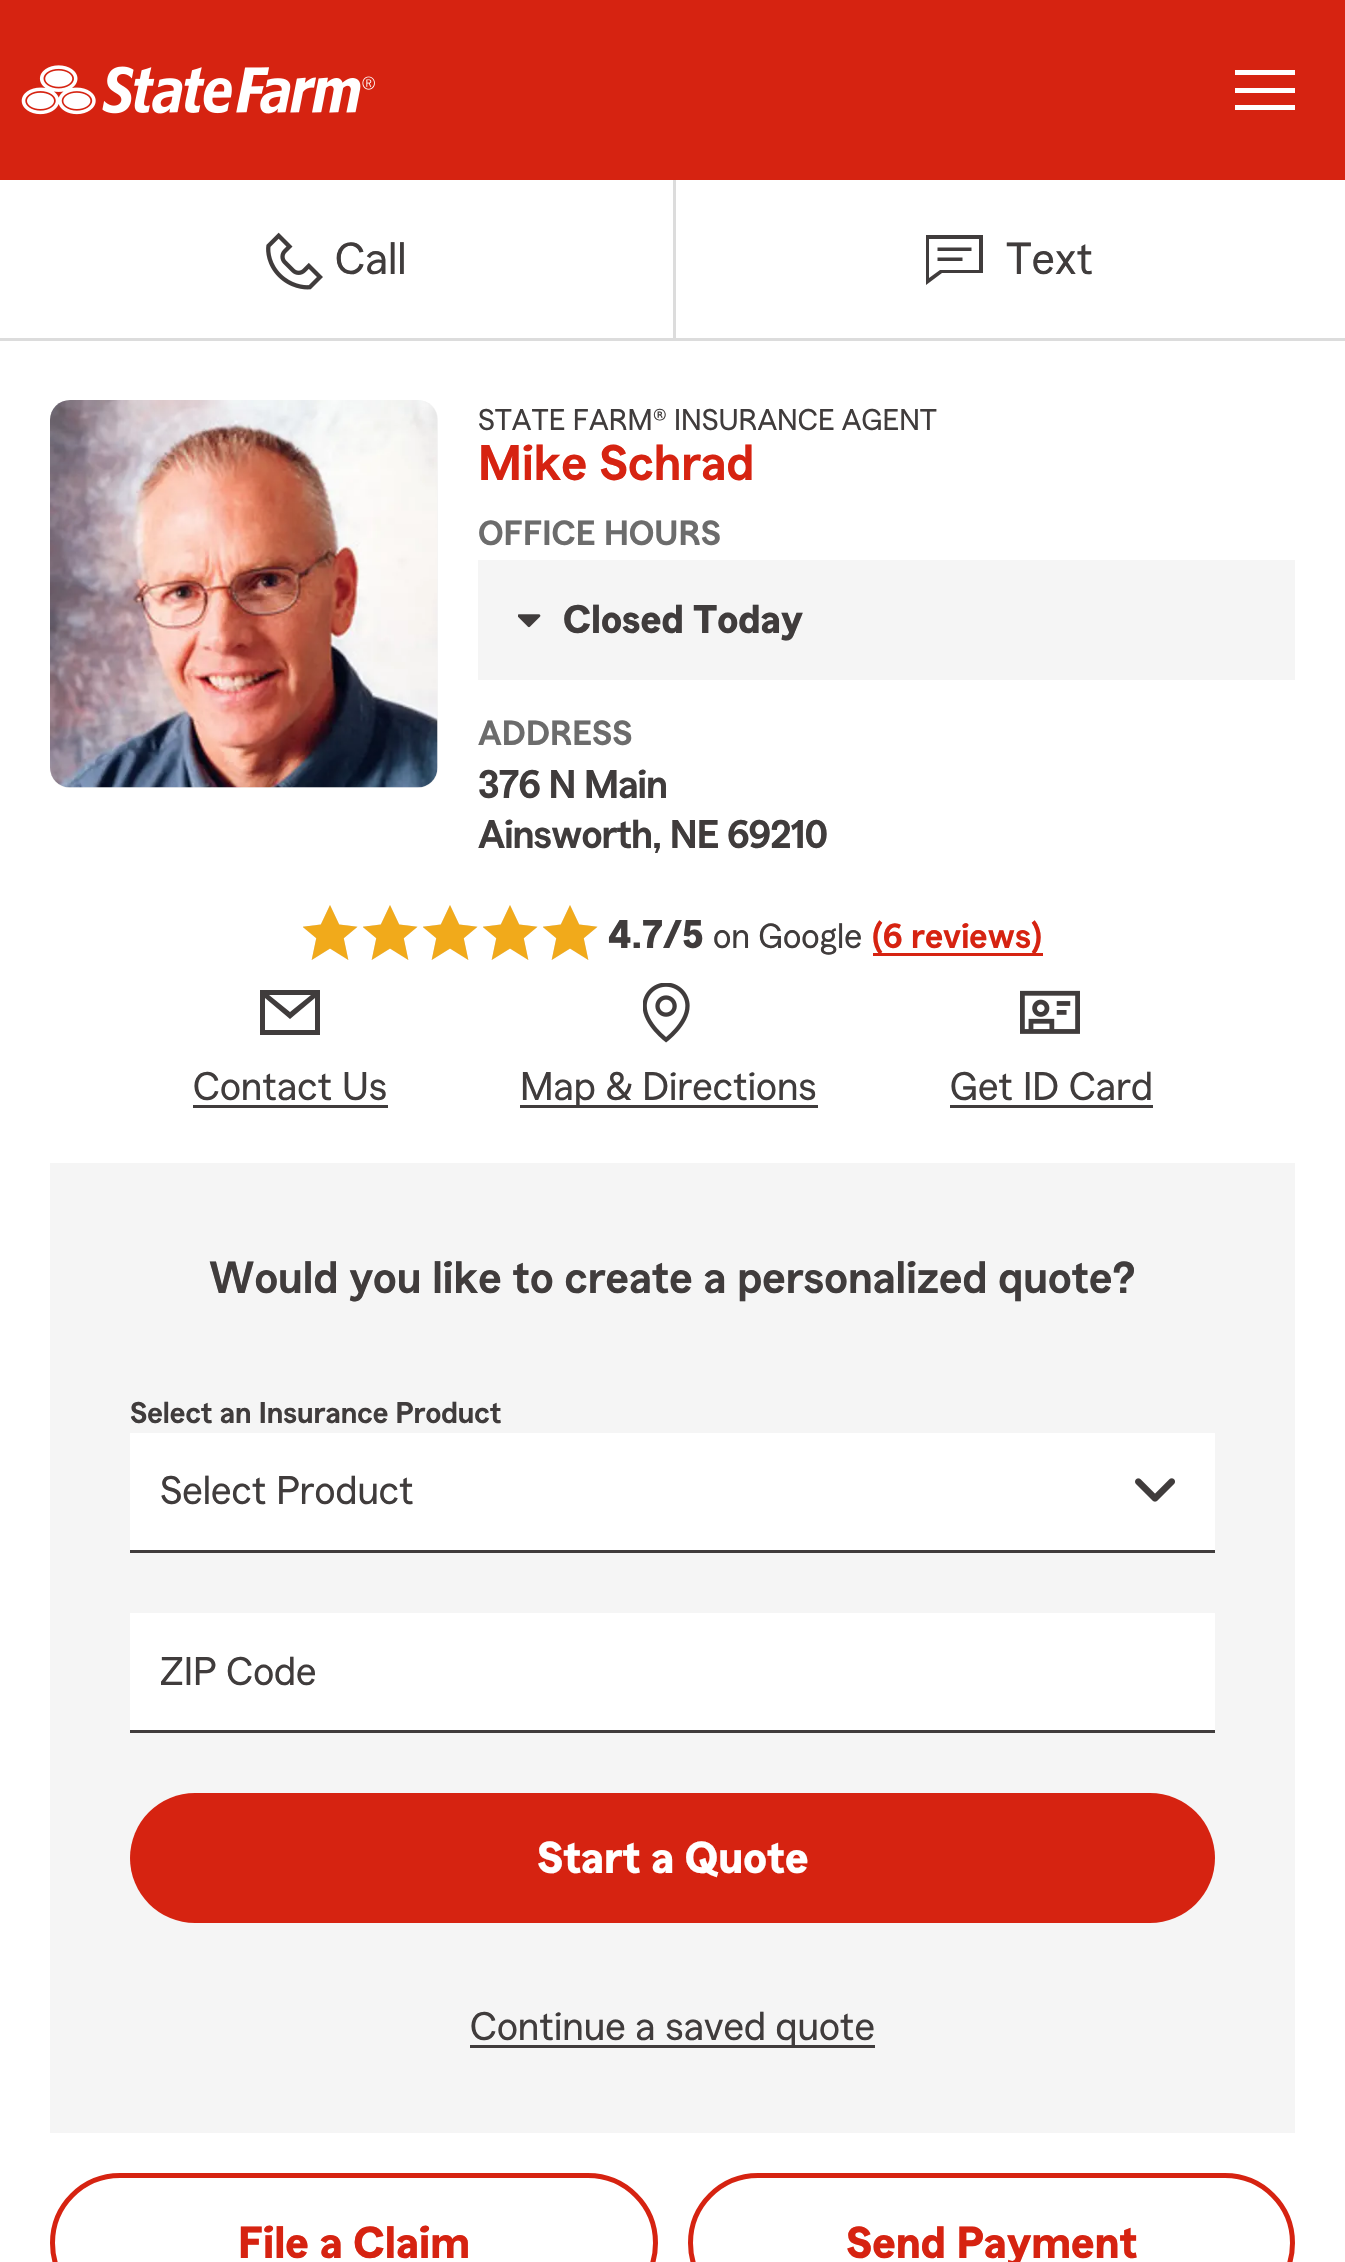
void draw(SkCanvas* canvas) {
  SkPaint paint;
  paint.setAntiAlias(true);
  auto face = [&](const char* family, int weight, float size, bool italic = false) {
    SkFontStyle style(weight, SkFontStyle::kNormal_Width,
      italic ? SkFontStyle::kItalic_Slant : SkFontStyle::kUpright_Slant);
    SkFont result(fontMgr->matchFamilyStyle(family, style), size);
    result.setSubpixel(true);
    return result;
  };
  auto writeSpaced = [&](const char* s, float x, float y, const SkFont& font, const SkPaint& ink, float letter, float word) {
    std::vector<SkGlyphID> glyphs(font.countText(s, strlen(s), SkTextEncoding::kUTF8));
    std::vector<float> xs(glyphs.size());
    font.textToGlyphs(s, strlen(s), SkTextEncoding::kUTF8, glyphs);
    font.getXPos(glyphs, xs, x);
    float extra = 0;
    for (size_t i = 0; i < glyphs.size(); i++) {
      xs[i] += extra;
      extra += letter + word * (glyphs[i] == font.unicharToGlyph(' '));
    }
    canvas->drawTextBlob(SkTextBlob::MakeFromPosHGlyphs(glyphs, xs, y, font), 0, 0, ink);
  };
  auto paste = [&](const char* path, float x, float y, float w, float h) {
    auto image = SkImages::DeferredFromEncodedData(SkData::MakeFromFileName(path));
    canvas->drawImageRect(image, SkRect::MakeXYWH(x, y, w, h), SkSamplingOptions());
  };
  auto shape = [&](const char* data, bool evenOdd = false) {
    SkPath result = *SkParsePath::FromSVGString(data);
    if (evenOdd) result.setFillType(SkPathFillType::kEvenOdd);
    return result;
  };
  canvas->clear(0xffffffff);
  paint.setColor(0xffd62311);
  canvas->drawRect(SkRect::MakeXYWH(0, 0, 1345, 180), paint);
  paste("img/1.png", 21, 65, 354, 50);
  {
    const struct { float x, y, w, h; SkColor color; } items[] = {
      {1235, 70, 60, 5, 0xffffffff},
      {1235, 88, 60, 5, 0xffffffff},
      {1235, 105, 60, 5, 0xffffffff},
      {0, 338, 1345, 3, 0xffdcdcdc},
    };
    for (auto [x, y, w, h, color] : items) {
      paint.setColor(color);
      canvas->drawRect(SkRect::MakeXYWH(x, y, w, h), paint);
    }
  }
  paste("img/2.png", 266, 232, 57, 58);
  canvas->drawRect(SkRect::MakeXYWH(673, 180, 3, 158), paint);
  paint.setColor(0xff403c3c);
  canvas->drawPath(shape("M926 235H983V273H942L926 285ZM929 239V278L940 270H979V239Z"), paint);
  canvas->drawPath(shape("M971.5 251H937.5V247.5H971.5ZM962.5 261H937.5V257.5H962.5Z"), paint);
  paint.setColor(0xfff5f5f5);
  canvas->drawRoundRect(SkRect::MakeXYWH(50, 400, 388, 388), 20, 20, paint);
  paste("img/3.png", 50, 400, 388, 388);
  canvas->drawRect(SkRect::MakeXYWH(478, 560, 817, 120), paint);
  paste("img/4.png", 518, 614, 23, 14);
  paste("img/5.png", 303, 905, 55, 55);
  paste("img/5.png", 363, 905, 55, 55);
  paste("img/5.png", 423, 905, 55, 55);
  paste("img/5.png", 483, 905, 55, 55);
  paste("img/5.png", 543, 905, 55, 55);
  paint.setColor(0xffd62311);
  canvas->drawRect(SkRect::MakeXYWH(873, 953, 170, 3), paint);
  paint.setColor(0xff403c3c);
  canvas->drawPath(shape("M260 990H320V1035H260ZM265 998V1030H315V998L290 1019ZM311 995H269L290 1012Z", true), paint);
  canvas->drawRect(SkRect::MakeXYWH(193, 1105, 195, 3), paint);
  paste("img/6.png", 643, 983, 47, 60);
  canvas->drawRect(SkRect::MakeXYWH(520, 1105, 298, 3), paint);
  paste("img/7.png", 1020, 990, 60, 44);
  {
    const struct { float x, y, w, h; SkColor color; } items[] = {
      {950, 1105, 203, 3, 0xff403c3c},
      {50, 1163, 1245, 970, 0xfff5f5f5},
      {130, 1550, 1085, 3, 0xff403c3c},
      {130, 1433, 1085, 117, 0xffffffff},
    };
    for (auto [x, y, w, h, color] : items) {
      paint.setColor(color);
      canvas->drawRect(SkRect::MakeXYWH(x, y, w, h), paint);
    }
  }
  paste("img/8.png", 1135, 1478, 40, 24);
  canvas->drawRect(SkRect::MakeXYWH(130, 1613, 1085, 117), paint);
  paint.setColor(0xff403c3c);
  canvas->drawRect(SkRect::MakeXYWH(130, 1730, 1085, 3), paint);
  paint.setColor(0xffd62311);
  canvas->drawRoundRect(SkRect::MakeXYWH(130, 1793, 1085, 130), 65, 65, paint);
  paint.setColor(0xff403c3c);
  canvas->drawRect(SkRect::MakeXYWH(470, 2045, 405, 3), paint);
  paint.setStroke(true);
  paint.setStrokeWidth(5);
  paint.setColor(0xffd62311);
  canvas->drawRoundRect(SkRect::MakeXYWH(52.5f, 2175.5f, 603, 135), 67.5f, 67.5f, paint);
  canvas->drawRoundRect(SkRect::MakeXYWH(690.5f, 2175.5f, 602, 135), 67.5f, 67.5f, paint);
  auto f0 = face("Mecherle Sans", 400, 45);
  paint.setStroke(false);
  paint.setColor(0xff403c3c);
  canvas->drawString("Call", 335, 274, f0, paint);
  canvas->drawString("Text", 1006, 274, f0, paint);
  auto f1 = face("Mecherle Sans", 400, 30);
  canvas->drawString("STATE FARM® INSURANCE AGENT", 478, 430, f1, paint);
  auto f2 = face("Mecherle Sans", 600, 50);
  paint.setColor(0xffd62311);
  canvas->drawString("Mike Schrad", 478, 480, f2, paint);
  auto f3 = face("Mecherle Sans", 600, 35);
  paint.setColor(0xff6c6c6c);
  canvas->drawString("OFFICE HOURS", 478, 545, f3, paint);
  auto f4 = face("Mecherle Sans", 700, 40);
  paint.setColor(0xff403c3c);
  canvas->drawString("Closed Today", 563, 633, f4, paint);
  paint.setColor(0xff6c6c6c);
  canvas->drawString("ADDRESS", 478, 745, f3, paint);
  auto f5 = face("Mecherle Sans", 600, 40);
  paint.setColor(0xff403c3c);
  writeSpaced("376 N Main", 478, 798, f5, paint, -1, 0);
  writeSpaced("Ainsworth, NE 69210", 478, 848, f5, paint, -1, 0);
  canvas->drawString("4.7/5", 608, 948, f4, paint);
  auto f6 = face("Mecherle Sans", 400, 35);
  canvas->drawString("on Google", 713, 948, f6, paint);
  paint.setColor(0xffd62311);
  canvas->drawString("(6 reviews)", 872, 948, f3, paint);
  auto f7 = face("Mecherle Sans", 400, 40);
  paint.setColor(0xff403c3c);
  {
    const struct { const char* s; float x, y; } items[] = {
      {"Contact Us", 193, 1100},
      {"Map & Directions", 520, 1100},
      {"Get ID Card", 950, 1100},
    };
    for (auto [s, x, y] : items) {
      canvas->drawString(s, x, y, f7, paint);
    }
  }
  auto f8 = face("Mecherle Sans", 600, 45);
  canvas->drawString("Would you like to create a personalized quote?", 209, 1293, f8, paint);
  auto f9 = face("Mecherle Sans", 600, 30);
  canvas->drawString("Select an Insurance Product", 130, 1423, f9, paint);
  canvas->drawString("Select Product", 160, 1504, f7, paint);
  canvas->drawString("ZIP Code", 160, 1685, f7, paint);
  auto f10 = face("Mecherle Sans", 700, 45);
  paint.setColor(0xffffffff);
  canvas->drawString("Start a Quote", 537, 1873, f10, paint);
  paint.setColor(0xff403c3c);
  canvas->drawString("Continue a saved quote", 470, 2040, f7, paint);
  paint.setColor(0xffd62311);
  canvas->drawString("File a Claim", 238, 2258, f10, paint);
  canvas->drawString("Send Payment", 846, 2258, f10, paint);
}
